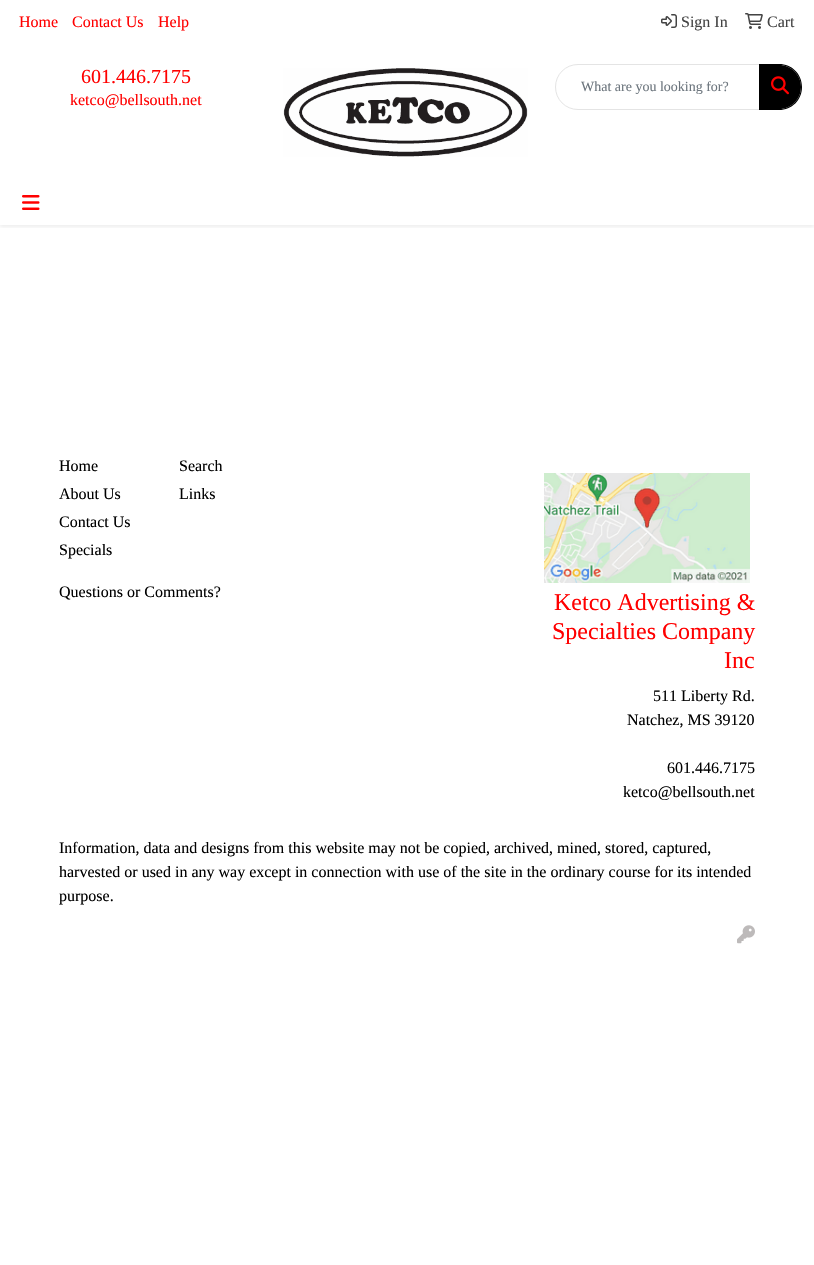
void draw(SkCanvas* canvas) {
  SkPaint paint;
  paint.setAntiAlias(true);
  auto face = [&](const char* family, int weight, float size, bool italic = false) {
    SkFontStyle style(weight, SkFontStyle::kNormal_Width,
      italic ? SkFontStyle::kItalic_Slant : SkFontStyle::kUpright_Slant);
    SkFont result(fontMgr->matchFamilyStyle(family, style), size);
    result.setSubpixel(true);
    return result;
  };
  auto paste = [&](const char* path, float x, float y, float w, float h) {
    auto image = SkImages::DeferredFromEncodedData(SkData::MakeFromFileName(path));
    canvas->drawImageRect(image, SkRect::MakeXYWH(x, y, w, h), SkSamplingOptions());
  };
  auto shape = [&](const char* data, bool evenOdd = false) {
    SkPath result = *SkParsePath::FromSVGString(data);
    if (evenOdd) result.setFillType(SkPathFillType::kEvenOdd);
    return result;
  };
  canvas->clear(0xffffffff);
  paste("img/1.png", 661, 14, 16, 14);
  paste("img/2.png", 745, 13, 18, 16);
  paste("img/3.png", 283, 68, 245, 89);
  paint.setStroke(true);
  paint.setStrokeWidth(1);
  paint.setColor(0xffe4e4e4);
  canvas->drawPath(shape("M578 64.5H759.5V109.5H578C565.5 109.5 555.5 99.5 555.5 87C555.5 74.5 565.5 64.5 578 64.5Z"), paint);
  paint.setStroke(false);
  paint.setColor(0xff000000);
  canvas->drawPath(shape("M759 65H779C791 65 801 75 801 87C801 99 791 109 779 109H759Z"), paint);
  canvas->drawPath(shape("M759 64H779C792 64 802 74 802 87C802 100 792 110 779 110H759ZM759 65H779C791 65 801 75 801 87C801 99 791 109 779 109H759Z", true), paint);
  paste("img/4.png", 771, 76, 18, 19);
  canvas->save();
  canvas->clipRect(SkRect::MakeXYWH(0, 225, 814, 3));
  paint.setColor(0x12000000);
  paint.setMaskFilter(SkMaskFilter::MakeBlur(kNormal_SkBlurStyle, 2));
  canvas->drawRect(SkRect::MakeXYWH(0, 183, 814, 44), paint);
  paint.setMaskFilter(nullptr);
  canvas->restore();
  paste("img/5.png", 22, 195, 18, 15);
  paste("img/6.png", 544, 473, 206, 110);
  paste("img/7.png", 737, 925, 18, 19);
  auto f0 = face("Liberation Serif", 400, 16);
  paint.setColor(0xffff0000);
  {
    const struct { const char* s; float x, y; } items[] = {
      {"Home", 19, 27},
      {"Contact Us", 72, 27},
      {"Help", 158, 27},
    };
    for (auto [s, x, y] : items) {
      canvas->drawString(s, x, y, f0, paint);
    }
  }
  paint.setColor(0xff444444);
  canvas->drawString("Sign In", 681, 27, f0, paint);
  canvas->drawString("Cart", 767, 27, f0, paint);
  auto f1 = face("Liberation Serif", 400, 20);
  paint.setColor(0xffff0000);
  canvas->drawString("601.446.7175", 81, 83, f1, paint);
  canvas->drawString("ketco@bellsouth.net", 70, 105, f0, paint);
  auto f2 = face("Liberation Serif", 400, 14);
  paint.setColor(0xff6c757d);
  canvas->drawString("What are you looking for?", 581, 91, f2, paint);
  paint.setColor(0xff000000);
  {
    const struct { const char* s; float x, y; } items[] = {
      {"Home", 59, 471},
      {"About Us", 59, 499},
      {"Contact Us", 59, 527},
      {"Specials", 59, 555},
      {"Search", 179, 471},
      {"Links", 179, 499},
      {"Questions or Comments?", 59, 597},
    };
    for (auto [s, x, y] : items) {
      canvas->drawString(s, x, y, f0, paint);
    }
  }
  auto f3 = face("Liberation Serif", 400, 24);
  paint.setColor(0xffff0000);
  {
    const struct { const char* s; float x, y; } items[] = {
      {"Ketco Advertising &", 554, 610},
      {"Specialties Company", 552, 639},
      {"Inc", 724, 668},
    };
    for (auto [s, x, y] : items) {
      canvas->drawString(s, x, y, f3, paint);
    }
  }
  paint.setColor(0xff000000);
  {
    const struct { const char* s; float x, y; } items[] = {
      {"511 Liberty Rd.", 653, 701},
      {"Natchez, MS 39120", 627, 725},
      {"601.446.7175", 667, 773},
      {"ketco@bellsouth.net", 623, 797},
      {"Information, data and designs from this website may not be copied, archived, mined, stored, captured,", 59, 853},
      {"harvested or used in any way except in connection with use of the site in the ordinary course for its intended", 59, 877},
      {"purpose.", 59, 901},
    };
    for (auto [s, x, y] : items) {
      canvas->drawString(s, x, y, f0, paint);
    }
  }
}
